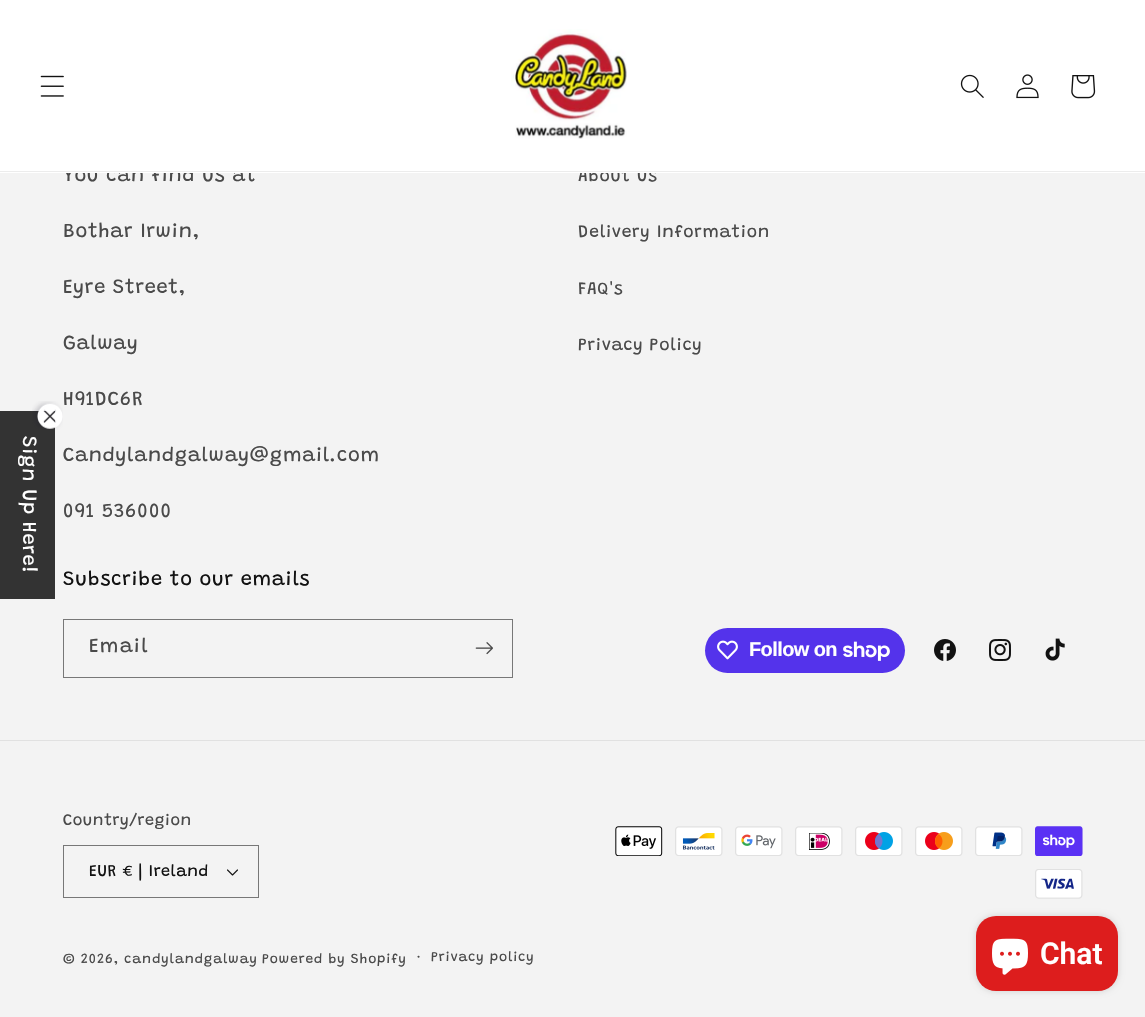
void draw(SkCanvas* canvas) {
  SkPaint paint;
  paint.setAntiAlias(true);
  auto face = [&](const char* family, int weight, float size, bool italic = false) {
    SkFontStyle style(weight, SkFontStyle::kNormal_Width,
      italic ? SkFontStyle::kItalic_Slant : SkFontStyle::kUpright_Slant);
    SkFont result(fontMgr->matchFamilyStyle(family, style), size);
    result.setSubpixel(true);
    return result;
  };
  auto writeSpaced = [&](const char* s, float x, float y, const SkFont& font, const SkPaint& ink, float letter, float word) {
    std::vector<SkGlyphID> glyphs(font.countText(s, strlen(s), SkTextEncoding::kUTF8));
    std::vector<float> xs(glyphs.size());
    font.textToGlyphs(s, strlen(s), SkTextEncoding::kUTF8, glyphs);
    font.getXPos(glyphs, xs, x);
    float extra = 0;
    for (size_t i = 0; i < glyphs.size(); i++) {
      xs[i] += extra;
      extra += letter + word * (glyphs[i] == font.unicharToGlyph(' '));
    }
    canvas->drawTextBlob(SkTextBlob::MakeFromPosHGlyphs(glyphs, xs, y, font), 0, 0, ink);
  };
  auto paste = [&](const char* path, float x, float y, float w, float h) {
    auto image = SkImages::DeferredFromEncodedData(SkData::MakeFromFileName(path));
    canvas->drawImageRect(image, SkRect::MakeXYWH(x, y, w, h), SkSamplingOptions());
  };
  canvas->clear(0xfff3f3f3);
  paint.setColor(0xff333333);
  canvas->drawRect(SkRect::MakeXYWH(0, 411, 55, 188), paint);
  paste("img/6.png", 32, 401, 31, 29);
  paint.setStroke(true);
  paint.setStrokeWidth(1);
  paint.setColor(0xff777777);
  canvas->drawRect(SkRect::MakeXYWH(63.5f, 619.5f, 449, 58), paint);
  paste("img/7.png", 475, 642, 18, 13);
  paint.setStroke(false);
  paint.setColor(0xff5433eb);
  canvas->drawRoundRect(SkRect::MakeXYWH(705, 628, 200, 45), 22.5f, 22.5f, paint);
  paste("img/8.png", 717, 640, 21, 20);
  paste("img/9.png", 843, 641, 47, 20);
  paste("img/10.png", 934, 639, 22, 22);
  paste("img/11.png", 989, 639, 22, 22);
  paste("img/12.png", 1045, 638, 20, 23);
  paint.setColor(0xffe1e1e1);
  canvas->drawRect(SkRect::MakeXYWH(0, 740, 1145, 1), paint);
  paste("img/13.png", 227, 869, 11, 7);
  paint.setStroke(true);
  paint.setColor(0xff777777);
  canvas->drawRect(SkRect::MakeXYWH(63.5f, 845.5f, 195, 52), paint);
  paste("img/14.png", 615, 826, 48, 30);
  paste("img/15.png", 675, 826, 48, 30);
  paste("img/16.png", 735, 826, 48, 30);
  paste("img/17.png", 795, 826, 48, 30);
  paste("img/18.png", 855, 826, 48, 30);
  paste("img/19.png", 915, 826, 48, 30);
  paste("img/20.png", 975, 826, 48, 30);
  paste("img/21.png", 1035, 826, 48, 30);
  paste("img/22.png", 1035, 869, 48, 30);
  paint.setStroke(false);
  paint.setColor(0x26000000);
  paint.setMaskFilter(SkMaskFilter::MakeBlur(kNormal_SkBlurStyle, 3));
  canvas->drawRoundRect(SkRect::MakeXYWH(976, 916, 142, 75), 20, 20, paint);
  paint.setMaskFilter(nullptr);
  paint.setColor(0xffdd1d1d);
  canvas->drawRoundRect(SkRect::MakeXYWH(976, 916, 142, 75), 20, 20, paint);
  paste("img/23.png", 992, 938, 36, 37);
  auto f0 = face("Grandstander", 400, 20);
  paint.setColor(0xffffffff);
  canvas->save();
  canvas->rotate(90, 23, 436);
  writeSpaced("Sign Up Here!", 23, 436, f0, paint, 0.75f, 0);
  canvas->restore();
  paint.setColor(0xff4a4a4a);
  {
    const struct { const char* s; float x, y; } items[] = {
      {"You can find us at", 63, 181},
      {"Bothar Irwin,", 63, 237},
      {"Eyre Street,", 63, 293},
      {"Galway", 63, 349},
      {"H91DC6R", 63, 405},
      {"Candylandgalway@gmail.com", 63, 461},
      {"091 536000", 63, 517},
    };
    for (auto [s, x, y] : items) {
      writeSpaced(s, x, y, f0, paint, 0.75f, 0);
    }
  }
  auto f1 = face("Grandstander", 400, 17.5f);
  writeSpaced("About Us", 578, 181, f1, paint, 0.75f, 0);
  paint.setColor(0xffffffff);
  canvas->drawRect(SkRect::MakeXYWH(0, 0, 1145, 173), paint);
  paste("img/5.png", 1071, 75, 25, 24);
  paste("img/3.png", 960, 74, 24, 24);
  paste("img/1.png", 40, 75, 24, 22);
  paste("img/4.png", 1016, 74, 23, 25);
  paste("img/2.png", 511, 29, 116, 110);
  paint.setColor(0xffececec);
  canvas->drawRect(SkRect::MakeXYWH(0, 171, 1145, 1), paint);
  paint.setColor(0xff4a4a4a);
  {
    const struct { const char* s; float x, y; } items[] = {
      {"Delivery Information", 578, 237},
      {"FAQ's", 578, 294},
      {"Privacy Policy", 578, 350},
    };
    for (auto [s, x, y] : items) {
      writeSpaced(s, x, y, f1, paint, 0.75f, 0);
    }
  }
  paint.setColor(0xff121212);
  writeSpaced("Subscribe to our emails", 63, 585, f0, paint, 0.75f, 0);
  paint.setColor(0xff4a4a4a);
  writeSpaced("Email", 89, 652, f0, paint, 1.25f, 0);
  auto f2 = face("Liberation Sans", 700, 20);
  paint.setColor(0xffffffff);
  writeSpaced("Follow on", 749, 656, f2, paint, -0.6f, 0);
  auto f3 = face("Grandstander", 400, 16.25f);
  paint.setColor(0xff4a4a4a);
  writeSpaced("Country/region", 63, 825, f3, paint, 0.5f, 0);
  paint.setColor(0xff121212);
  writeSpaced("EUR € | Ireland", 89, 876, f3, paint, 0.5f, 0);
  auto f4 = face("Grandstander", 400, 13.75f);
  paint.setColor(0xff4a4a4a);
  writeSpaced("© 2026, candylandgalway", 63, 963, f4, paint, 0.9f, 0);
  writeSpaced("Powered by Shopify", 262, 963, f4, paint, 0.9f, 0);
  auto f5 = face("Grandstander", 400, 15);
  writeSpaced("·", 417, 963, f5, paint, 0.9f, 0);
  writeSpaced("Privacy policy", 431, 961, f4, paint, 0.9f, 0);
  auto f6 = face("Roboto", 600, 30);
  paint.setColor(0xffffffff);
  canvas->drawString("Chat", 1040, 964, f6, paint);
}
